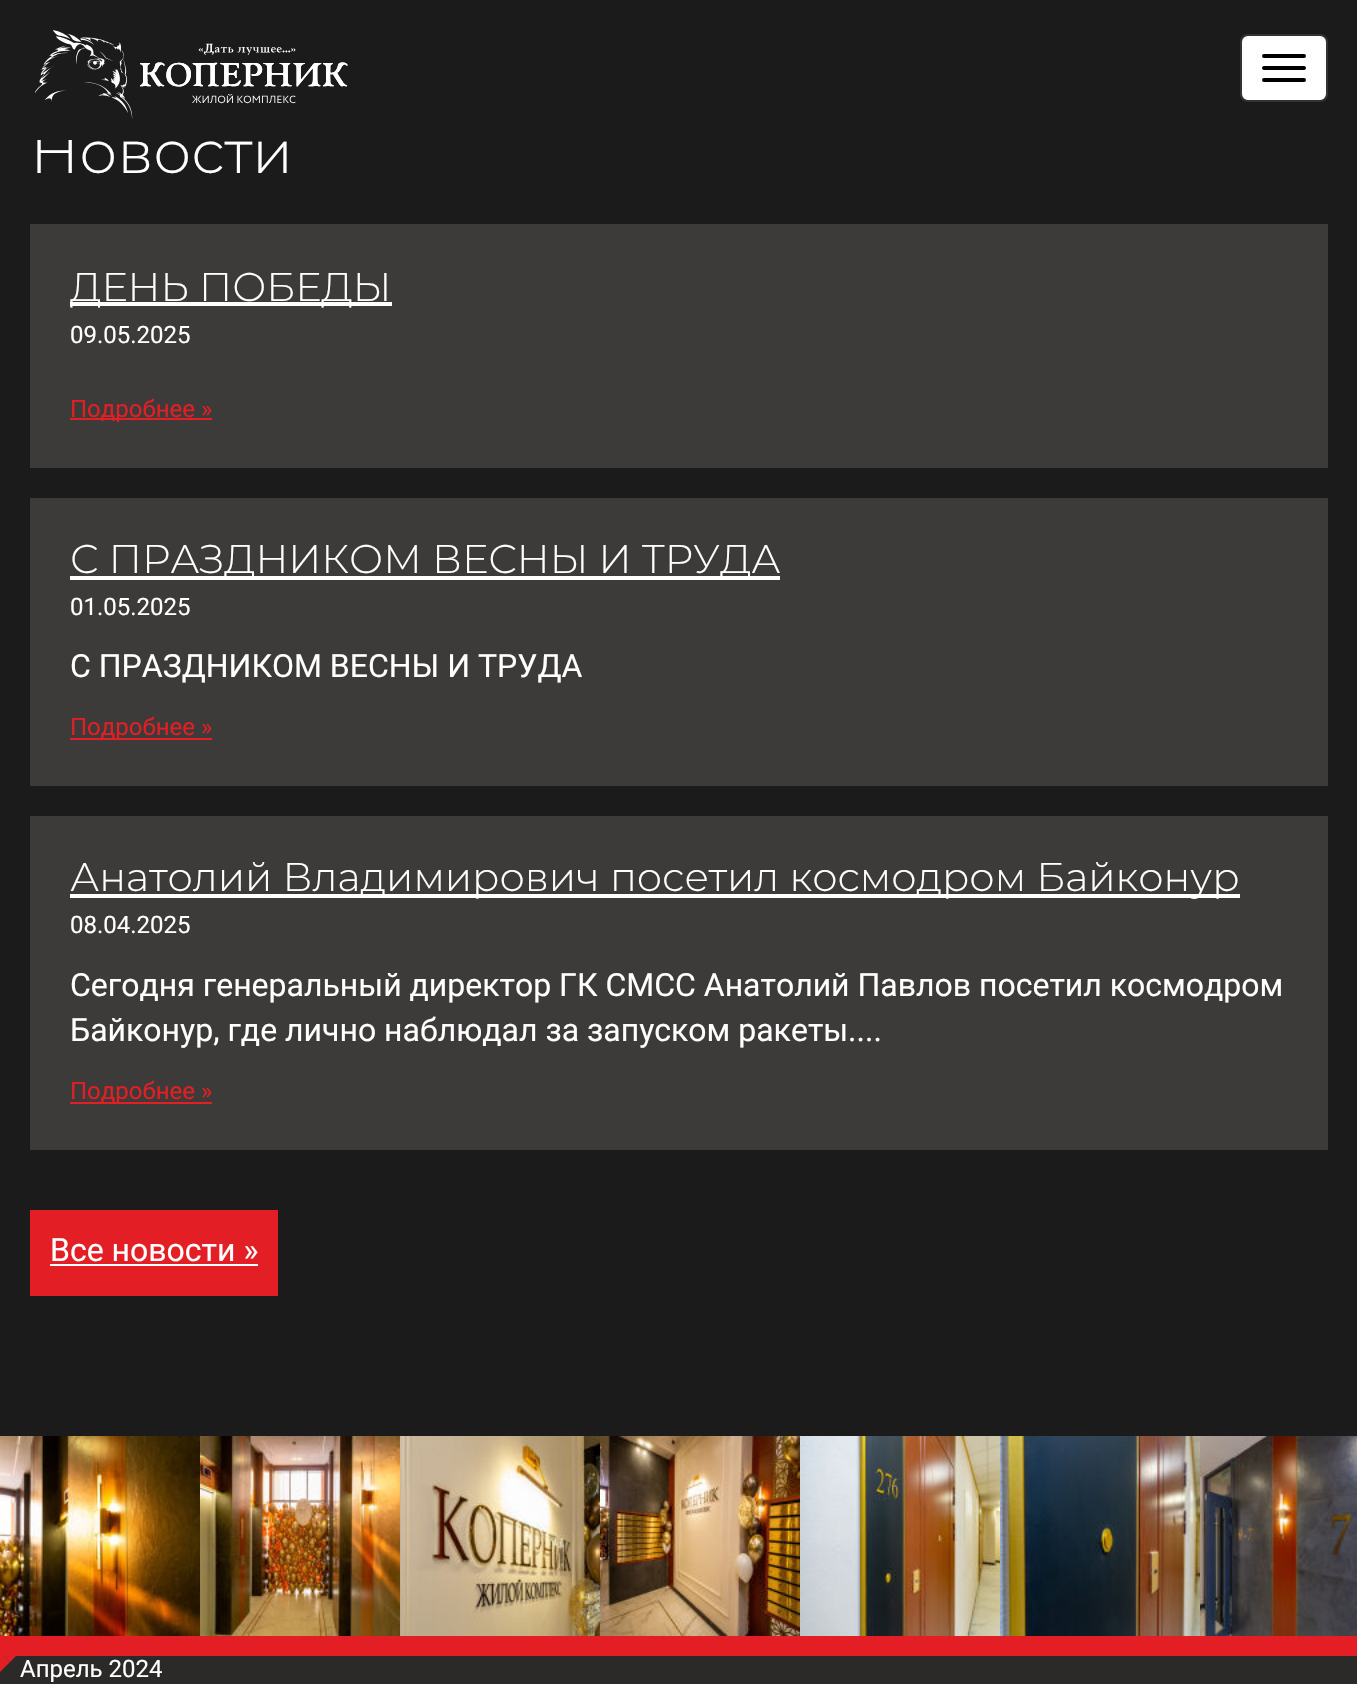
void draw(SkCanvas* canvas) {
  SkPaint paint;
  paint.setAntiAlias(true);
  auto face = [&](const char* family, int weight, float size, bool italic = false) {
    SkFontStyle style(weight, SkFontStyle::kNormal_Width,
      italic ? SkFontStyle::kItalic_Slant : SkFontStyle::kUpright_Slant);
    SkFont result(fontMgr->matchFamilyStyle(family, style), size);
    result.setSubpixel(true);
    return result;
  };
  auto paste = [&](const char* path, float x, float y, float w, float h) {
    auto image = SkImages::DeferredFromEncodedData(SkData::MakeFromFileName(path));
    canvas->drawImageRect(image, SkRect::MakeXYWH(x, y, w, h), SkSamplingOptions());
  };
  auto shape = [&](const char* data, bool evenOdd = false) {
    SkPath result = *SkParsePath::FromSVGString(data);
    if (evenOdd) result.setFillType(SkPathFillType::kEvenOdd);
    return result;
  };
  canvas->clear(0xff1b1b1c);
  paste("img/1.png", 34, 30, 314, 89);
  paint.setColor(0xffffffff);
  canvas->drawRoundRect(SkRect::MakeXYWH(1241, 35, 86, 66), 7, 7, paint);
  paint.setStroke(true);
  paint.setStrokeWidth(2);
  paint.setColor(0xff333333);
  canvas->drawRoundRect(SkRect::MakeXYWH(1241, 35, 86, 66), 7, 7, paint);
  paint.setStroke(false);
  paint.setColor(0xff000000);
  canvas->drawRoundRect(SkRect::MakeXYWH(1262, 54, 44, 4), 2, 2, paint);
  canvas->drawRoundRect(SkRect::MakeXYWH(1262, 66, 44, 4), 2, 2, paint);
  canvas->drawRoundRect(SkRect::MakeXYWH(1262, 78, 44, 4), 2, 2, paint);
  {
    const struct { float x, y, w, h; SkColor color; } items[] = {
      {30, 224, 1298, 244, 0xff3c3b39},
      {70, 302, 322, 4, 0xffffffff},
      {70, 418, 142, 2, 0xffe31e24},
      {30, 498, 1298, 288, 0xff3c3b39},
      {70, 576, 710, 4, 0xffffffff},
      {70, 738, 142, 2, 0xffe31e24},
      {30, 816, 1298, 334, 0xff3c3b39},
      {70, 894, 1170, 4, 0xffffffff},
      {70, 1102, 142, 2, 0xffe31e24},
      {30, 1210, 248, 86, 0xffe31e24},
      {50, 1264, 208, 2, 0xffffffff},
      {0, 1656, 1357, 28, 0xff2b2a29},
    };
    for (auto [x, y, w, h, color] : items) {
      paint.setColor(color);
      canvas->drawRect(SkRect::MakeXYWH(x, y, w, h), paint);
    }
  }
  paste("img/2.png", 200, 1436, 200, 200);
  paste("img/3.png", 400, 1436, 200, 200);
  paste("img/4.png", 600, 1436, 200, 200);
  paste("img/5.png", 800, 1436, 200, 200);
  paste("img/6.png", 1000, 1436, 200, 200);
  paste("img/7.png", 1200, 1436, 157, 200);
  paste("img/8.png", 0, 1436, 200, 200);
  paint.setColor(0xffe31e24);
  canvas->drawRect(SkRect::MakeXYWH(0, 1636, 1357, 20), paint);
  canvas->drawPath(shape("M0 1652H20L10 1662Z"), paint);
  canvas->drawPath(shape("M0 1672V1652L10 1662Z"), paint);
  auto f0 = face("Montserrat", 300, 60);
  paint.setColor(0xffffffff);
  canvas->drawString("Новости", 30, 173, f0, paint);
  paint.setColor(0xff1b1b1c);
  canvas->drawRect(SkRect::MakeXYWH(37, 131, 35, 9), paint);
  auto f1 = face("Montserrat", 300, 40);
  paint.setColor(0xffffffff);
  canvas->drawString("ДЕНЬ ПОБЕДЫ", 70, 301, f1, paint);
  auto f2 = face("Roboto", 400, 24);
  canvas->drawString("09.05.2025", 70, 343, f2, paint);
  paint.setColor(0xffe31e24);
  canvas->drawString("Подробнее »", 70, 417, f2, paint);
  paint.setColor(0xffffffff);
  canvas->drawString("С ПРАЗДНИКОМ ВЕСНЫ И ТРУДА", 70, 573, f1, paint);
  canvas->drawString("01.05.2025", 70, 615, f2, paint);
  auto f3 = face("Roboto", 400, 32);
  canvas->drawString("С ПРАЗДНИКОМ ВЕСНЫ И ТРУДА", 70, 677, f3, paint);
  paint.setColor(0xffe31e24);
  canvas->drawString("Подробнее »", 70, 735, f2, paint);
  paint.setColor(0xffffffff);
  canvas->drawString("Анатолий Владимирович посетил космодром Байконур", 70, 891, f1, paint);
  canvas->drawString("08.04.2025", 70, 933, f2, paint);
  canvas->drawString("Сегодня генеральный директор ГК СМСС Анатолий Павлов посетил космодром", 70, 996, f3, paint);
  canvas->drawString("Байконур, где лично наблюдал за запуском ракеты....", 70, 1041, f3, paint);
  paint.setColor(0xffe31e24);
  canvas->drawString("Подробнее »", 70, 1099, f2, paint);
  paint.setColor(0xffffffff);
  canvas->drawString("Все новости »", 50, 1261, f3, paint);
  canvas->drawString("Апрель 2024", 20, 1677, f2, paint);
}
